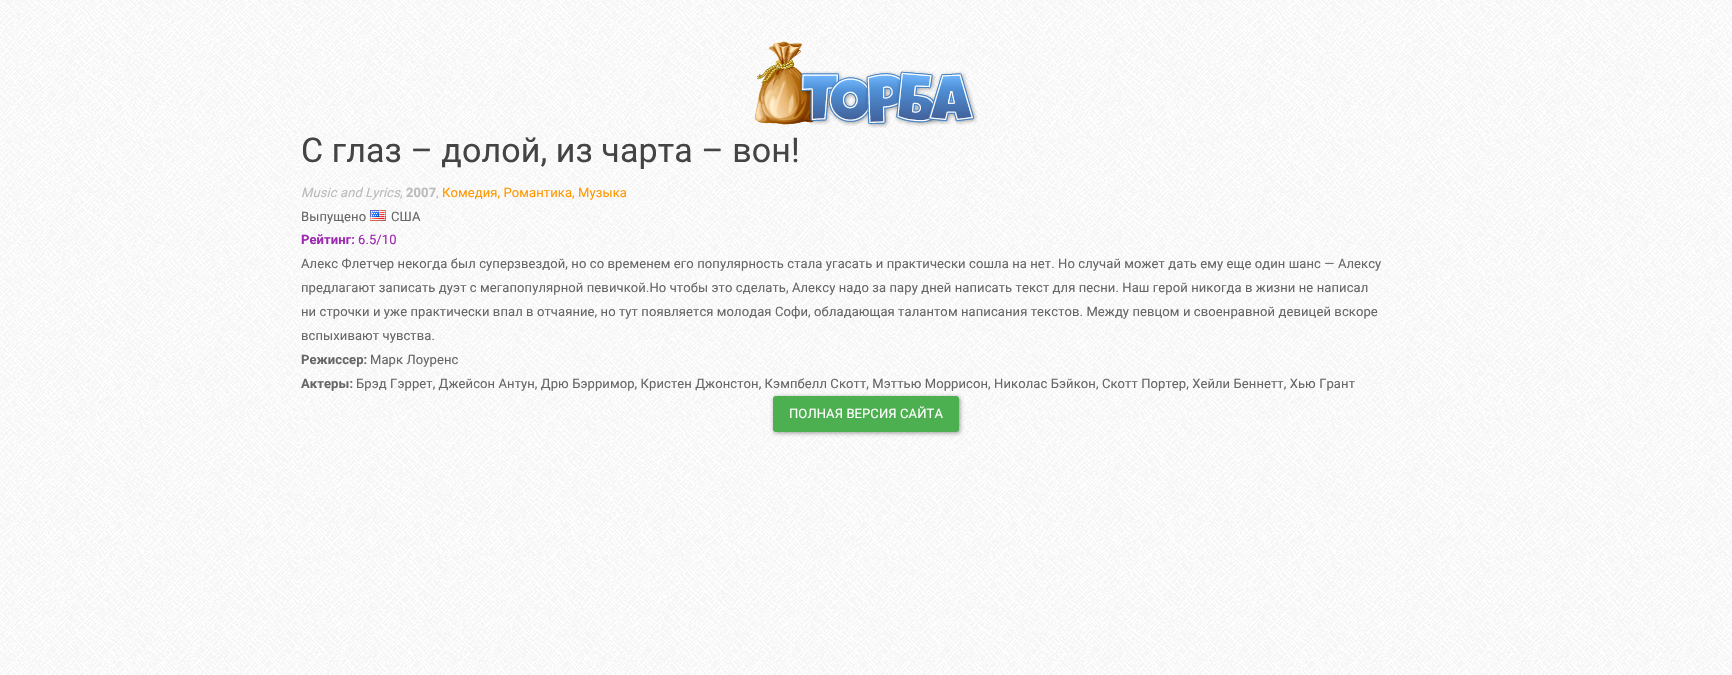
void draw(SkCanvas* canvas) {
  SkPaint paint;
  paint.setAntiAlias(true);
  auto face = [&](const char* family, int weight, float size, bool italic = false) {
    SkFontStyle style(weight, SkFontStyle::kNormal_Width,
      italic ? SkFontStyle::kItalic_Slant : SkFontStyle::kUpright_Slant);
    SkFont result(fontMgr->matchFamilyStyle(family, style), size);
    result.setSubpixel(true);
    return result;
  };
  auto writeSpaced = [&](const char* s, float x, float y, const SkFont& font, const SkPaint& ink, float letter, float word) {
    std::vector<SkGlyphID> glyphs(font.countText(s, strlen(s), SkTextEncoding::kUTF8));
    std::vector<float> xs(glyphs.size());
    font.textToGlyphs(s, strlen(s), SkTextEncoding::kUTF8, glyphs);
    font.getXPos(glyphs, xs, x);
    float extra = 0;
    for (size_t i = 0; i < glyphs.size(); i++) {
      xs[i] += extra;
      extra += letter + word * (glyphs[i] == font.unicharToGlyph(' '));
    }
    canvas->drawTextBlob(SkTextBlob::MakeFromPosHGlyphs(glyphs, xs, y, font), 0, 0, ink);
  };
  auto paste = [&](const char* path, float x, float y, float w, float h) {
    auto image = SkImages::DeferredFromEncodedData(SkData::MakeFromFileName(path));
    canvas->drawImageRect(image, SkRect::MakeXYWH(x, y, w, h), SkSamplingOptions());
  };
  canvas->clear(0xffffffff);
  paste("img/1.png", 0, 0, 1732, 675);
  paste("img/2.png", 755, 41, 223, 87);
  paste("img/3.png", 370, 210, 16, 11);
  paint.setColor(0x66000000);
  paint.setMaskFilter(SkMaskFilter::MakeBlur(kNormal_SkBlurStyle, 2));
  canvas->drawRoundRect(SkRect::MakeXYWH(774, 397, 186, 36), 3, 3, paint);
  paint.setMaskFilter(nullptr);
  paint.setColor(0xff4caf50);
  canvas->drawRoundRect(SkRect::MakeXYWH(773, 396, 186, 36), 3, 3, paint);
  auto f0 = face("Roboto", 400, 34);
  paint.setColor(0xff444444);
  writeSpaced("С глаз – долой, из чарта – вон!", 301, 162, f0, paint, 0.1f, 0);
  auto f1 = face("Roboto", 400, 13, true);
  paint.setColor(0xffbbbbbb);
  writeSpaced("Music and Lyrics", 301, 197, f1, paint, 0.1f, 0);
  auto f2 = face("Roboto", 700, 13);
  writeSpaced("2007", 406, 197, f2, paint, 0.1f, 0);
  auto f3 = face("Roboto", 400, 13);
  paint.setColor(0xffff9800);
  writeSpaced("Комедия, Романтика, Музыка", 442, 197, f3, paint, 0.1f, 0);
  paint.setColor(0xffbbbbbb);
  writeSpaced(",", 400, 197, f3, paint, 0.1f, 0);
  writeSpaced(",", 436, 197, f3, paint, 0.1f, 0);
  paint.setColor(0xff666666);
  writeSpaced("Выпущено", 301, 221, f3, paint, 0.1f, 0);
  writeSpaced("США", 391, 221, f3, paint, 0.1f, 0);
  paint.setColor(0xff9c27b0);
  writeSpaced("Рейтинг:", 301, 244, f2, paint, 0.1f, 0);
  writeSpaced("6.5/10", 358, 244, f3, paint, 0.1f, 0);
  paint.setColor(0xff666666);
  {
    const struct { const char* s; float x, y; } items[] = {
      {"Алекс Флетчер некогда был суперзвездой, но со временем его популярность стала угасать и практически сошла на нет. Но случай может дать ему еще один шанс — Алексу", 301, 268},
      {"предлагают записать дуэт с мегапопулярной певичкой.Но чтобы это сделать, Алексу надо за пару дней написать текст для песни. Наш герой никогда в жизни не написал", 301, 292},
      {"ни строчки и уже практически впал в отчаяние, но тут появляется молодая Софи, обладающая талантом написания текстов. Между певцом и своенравной девицей вскоре", 301, 316},
      {"вспыхивают чувства.", 301, 340},
    };
    for (auto [s, x, y] : items) {
      writeSpaced(s, x, y, f3, paint, 0.1f, 0);
    }
  }
  writeSpaced("Режиссер:", 301, 364, f2, paint, 0.1f, 0);
  writeSpaced("Марк Лоуренс", 370, 364, f3, paint, 0.1f, 0);
  writeSpaced("Актеры:", 301, 388, f2, paint, 0.1f, 0);
  writeSpaced("Брэд Гэррет, Джейсон Антун, Дрю Бэрримор, Кристен Джонстон, Кэмпбелл Скотт, Мэттью Моррисон, Николас Бэйкон, Скотт Портер, Хейли Беннетт, Хью Грант", 356, 388, f3, paint, 0.1f, 0);
  paint.setColor(0xffffffff);
  writeSpaced("ПОЛНАЯ ВЕРСИЯ САЙТА", 789, 418, f3, paint, 0.1f, 0);
}
